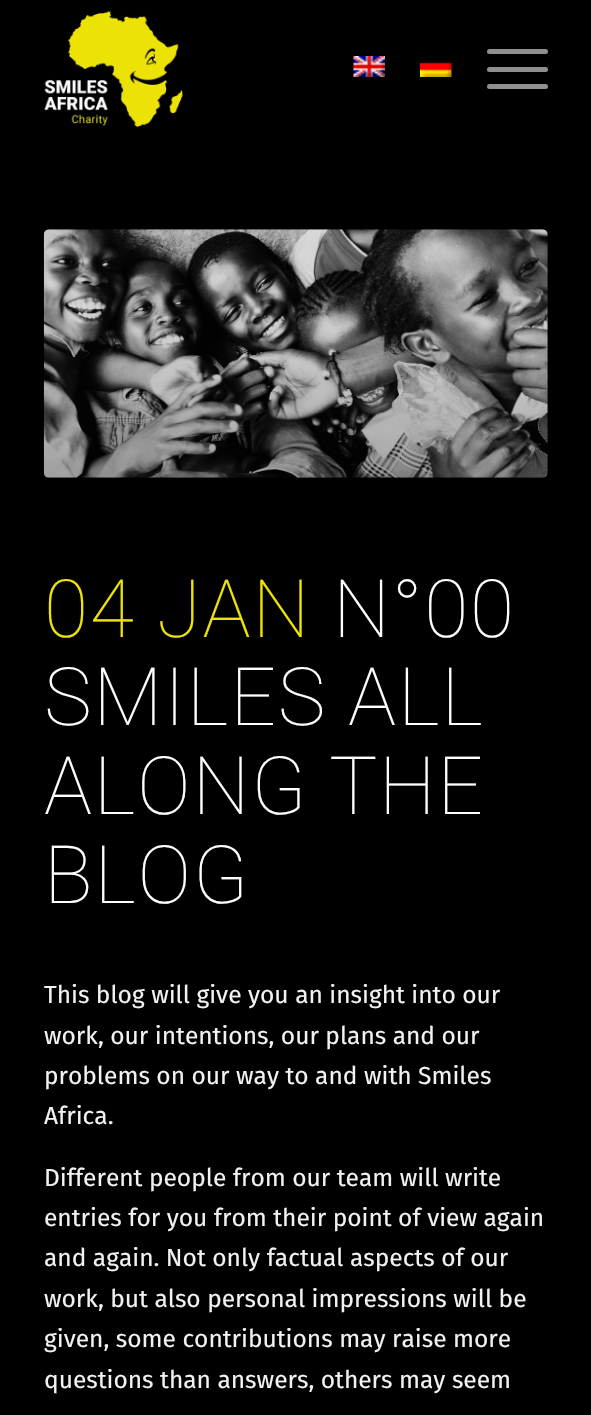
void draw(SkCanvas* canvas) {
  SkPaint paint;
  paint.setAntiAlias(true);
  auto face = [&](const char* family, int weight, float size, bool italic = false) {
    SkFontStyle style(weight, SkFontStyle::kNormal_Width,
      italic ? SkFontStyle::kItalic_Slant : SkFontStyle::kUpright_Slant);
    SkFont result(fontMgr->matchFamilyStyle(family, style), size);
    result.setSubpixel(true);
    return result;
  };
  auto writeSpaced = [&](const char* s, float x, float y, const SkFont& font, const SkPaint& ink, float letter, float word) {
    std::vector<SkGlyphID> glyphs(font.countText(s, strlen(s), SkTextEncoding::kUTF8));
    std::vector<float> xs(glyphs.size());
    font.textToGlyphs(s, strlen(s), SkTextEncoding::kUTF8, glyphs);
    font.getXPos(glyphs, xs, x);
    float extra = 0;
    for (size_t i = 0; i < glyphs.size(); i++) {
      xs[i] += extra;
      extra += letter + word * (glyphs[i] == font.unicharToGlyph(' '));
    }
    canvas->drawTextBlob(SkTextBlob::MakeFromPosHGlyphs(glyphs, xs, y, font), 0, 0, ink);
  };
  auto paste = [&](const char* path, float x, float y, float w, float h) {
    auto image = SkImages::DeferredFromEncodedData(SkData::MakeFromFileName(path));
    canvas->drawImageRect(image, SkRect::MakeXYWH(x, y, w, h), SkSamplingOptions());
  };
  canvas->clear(0xff000000);
  paste("img/1.png", 44, 11, 139, 116);
  paste("img/2.png", 353, 56, 32, 21);
  paste("img/3.png", 420, 62, 32, 15);
  paint.setColor(0xff8f8f8f);
  canvas->drawRoundRect(SkRect::MakeXYWH(487, 67, 61, 5), 2.5f, 2.5f, paint);
  canvas->drawRoundRect(SkRect::MakeXYWH(487, 49, 61, 5), 2.5f, 2.5f, paint);
  canvas->drawRoundRect(SkRect::MakeXYWH(487, 84, 61, 5), 2.5f, 2.5f, paint);
  paste("img/4.png", 43, 229, 505, 249);
  auto f0 = face("Roboto", 100, 80.5f);
  paint.setColor(0xffeee306);
  writeSpaced("04 JAN", 44, 637, f0, paint, 1.75f, 0);
  paint.setColor(0xffffffff);
  {
    const struct { const char* s; float x, y; } items[] = {
      {"N°00", 333, 637},
      {"SMILES ALL", 44, 725},
      {"ALONG THE", 44, 814},
      {"BLOG", 44, 903},
    };
    for (auto [s, x, y] : items) {
      writeSpaced(s, x, y, f0, paint, 1.75f, 0);
    }
  }
  auto f1 = face("Fira Sans", 400, 24.5f);
  paint.setColor(0xfff2f2f2);
  {
    const struct { const char* s; float x, y; } items[] = {
      {"This blog will give you an insight into our", 44, 1003},
      {"work, our intentions, our plans and our", 44, 1044},
      {"problems on our way to and with Smiles", 44, 1084},
      {"Africa.", 44, 1124},
      {"Different people from our team will write", 44, 1186},
      {"entries for you from their point of view again", 44, 1226},
      {"and again. Not only factual aspects of our", 44, 1266},
      {"work, but also personal impressions will be", 44, 1307},
      {"given, some contributions may raise more", 44, 1347},
      {"questions than answers, others may seem", 44, 1388},
    };
    for (auto [s, x, y] : items) {
      canvas->drawString(s, x, y, f1, paint);
    }
  }
}
